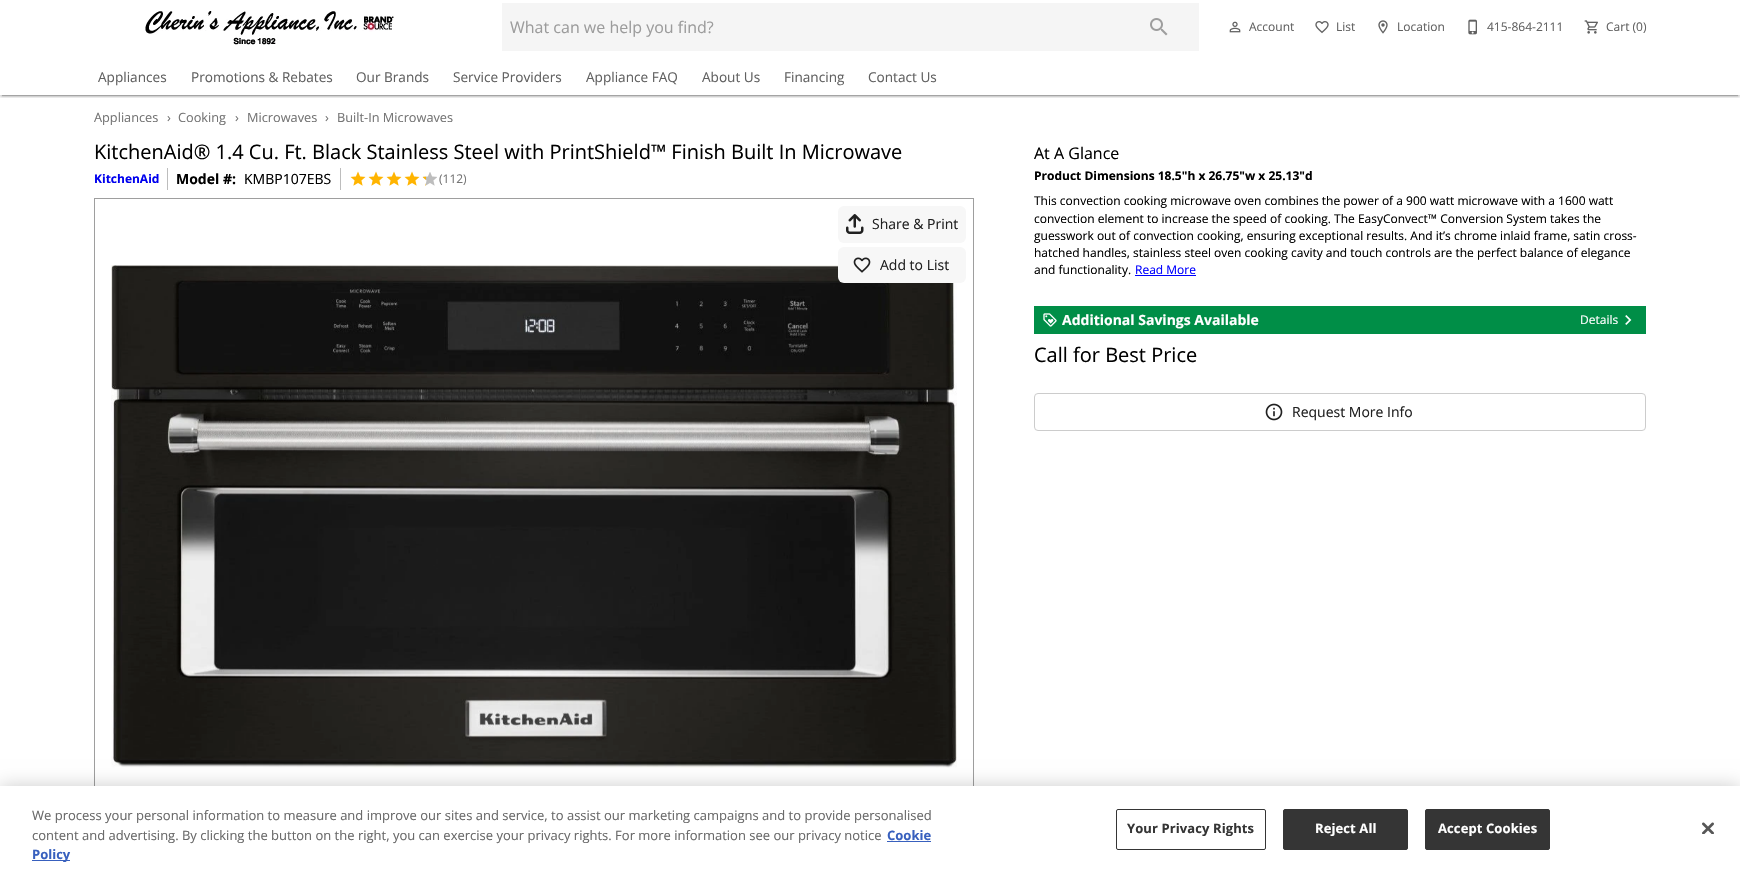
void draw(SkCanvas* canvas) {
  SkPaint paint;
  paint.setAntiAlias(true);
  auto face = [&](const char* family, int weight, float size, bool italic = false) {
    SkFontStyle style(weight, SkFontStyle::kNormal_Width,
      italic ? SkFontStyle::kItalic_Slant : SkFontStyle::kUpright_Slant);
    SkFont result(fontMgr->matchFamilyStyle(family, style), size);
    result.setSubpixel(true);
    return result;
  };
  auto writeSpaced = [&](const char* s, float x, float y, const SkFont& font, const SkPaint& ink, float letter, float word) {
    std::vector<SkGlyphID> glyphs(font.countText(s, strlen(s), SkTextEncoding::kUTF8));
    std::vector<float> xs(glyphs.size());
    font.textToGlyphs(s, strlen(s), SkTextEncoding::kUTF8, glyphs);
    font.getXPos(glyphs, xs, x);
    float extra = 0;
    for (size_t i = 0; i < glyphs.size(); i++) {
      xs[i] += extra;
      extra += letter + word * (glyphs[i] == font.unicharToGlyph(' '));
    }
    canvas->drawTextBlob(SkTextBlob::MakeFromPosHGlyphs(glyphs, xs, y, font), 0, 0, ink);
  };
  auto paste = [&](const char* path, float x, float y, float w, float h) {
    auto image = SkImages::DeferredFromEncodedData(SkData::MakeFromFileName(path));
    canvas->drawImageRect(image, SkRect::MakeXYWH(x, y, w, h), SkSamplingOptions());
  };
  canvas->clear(0xffffffff);
  canvas->save();
  canvas->clipRect(SkRect::MakeXYWH(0, 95, 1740, 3));
  paint.setColor(0x1f000000);
  paint.setMaskFilter(SkMaskFilter::MakeBlur(kNormal_SkBlurStyle, 2.5f));
  canvas->drawRect(SkRect::MakeXYWH(0, 0, 1740, 96), paint);
  paint.setMaskFilter(nullptr);
  paint.setColor(0x24000000);
  paint.setMaskFilter(SkMaskFilter::MakeBlur(kNormal_SkBlurStyle, 1));
  canvas->drawRect(SkRect::MakeXYWH(0, 1, 1740, 96), paint);
  paint.setMaskFilter(nullptr);
  canvas->restore();
  canvas->save();
  canvas->clipRect(SkRect::MakeXYWH(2, 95, 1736, 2));
  paint.setColor(0x33000000);
  paint.setMaskFilter(SkMaskFilter::MakeBlur(kNormal_SkBlurStyle, 0.5f));
  canvas->drawRect(SkRect::MakeXYWH(2, 4, 1736, 92), paint);
  paint.setMaskFilter(nullptr);
  canvas->restore();
  paste("img/1.png", 145, 11, 249, 34);
  paint.setColor(0xfff5f5f5);
  canvas->drawRect(SkRect::MakeXYWH(502, 3, 697, 48), paint);
  paste("img/2.png", 1150, 18, 18, 18);
  paste("img/3.png", 1229, 21, 12, 12);
  paste("img/4.png", 1315, 21, 14, 13);
  paste("img/5.png", 1378, 20, 10, 14);
  paste("img/6.png", 1468, 19, 9, 16);
  paste("img/7.png", 1584, 20, 14, 14);
  paint.setColor(0xffbdbdbd);
  canvas->drawRect(SkRect::MakeXYWH(167, 168, 1, 22), paint);
  canvas->drawRect(SkRect::MakeXYWH(340, 168, 1, 22), paint);
  paste("img/8.png", 350, 171, 16, 15);
  paste("img/8.png", 368, 171, 16, 15);
  paste("img/8.png", 386, 171, 16, 15);
  paste("img/8.png", 404, 171, 16, 15);
  paste("img/9.png", 423, 172, 14, 14);
  paste("img/10.png", 422, 176, 4, 10);
  paint.setStroke(true);
  paint.setStrokeWidth(1);
  paint.setColor(0xff9e9e9e);
  canvas->drawRect(SkRect::MakeXYWH(94.5f, 198.5f, 879, 639), paint);
  paste("img/11.png", 111, 265, 846, 503);
  paint.setStroke(false);
  paint.setColor(0xfff7f7f7);
  canvas->drawRoundRect(SkRect::MakeXYWH(838, 206, 128, 37), 6, 6, paint);
  paste("img/12.png", 846, 214, 18, 20);
  canvas->drawRoundRect(SkRect::MakeXYWH(838, 247, 128, 36), 6, 6, paint);
  paste("img/13.png", 853, 257, 18, 16);
  paint.setColor(0xff0000ff);
  canvas->drawRect(SkRect::MakeXYWH(1135, 275, 61, 1), paint);
  paint.setColor(0xff008e47);
  canvas->drawRect(SkRect::MakeXYWH(1034, 306, 612, 28), paint);
  paste("img/14.png", 1043, 313, 14, 14);
  paste("img/15.png", 1625, 315, 7, 10);
  paint.setStroke(true);
  paint.setColor(0xffcccccc);
  canvas->drawRoundRect(SkRect::MakeXYWH(1034.5f, 393.5f, 611, 37), 3.5f, 3.5f, paint);
  paste("img/16.png", 1265, 403, 18, 18);
  paint.setStroke(false);
  paint.setColor(0x33000000);
  paint.setMaskFilter(SkMaskFilter::MakeBlur(kNormal_SkBlurStyle, 9));
  canvas->drawRect(SkRect::MakeXYWH(0, 786, 1740, 89), paint);
  paint.setMaskFilter(nullptr);
  {
    const struct { float x, y, w, h; SkColor color; } items[] = {
      {0, 786, 1740, 89, 0xffffffff},
      {887, 841, 44, 1, 0xff3860be},
      {32, 860, 38, 1, 0xff3860be},
    };
    for (auto [x, y, w, h, color] : items) {
      paint.setColor(color);
      canvas->drawRect(SkRect::MakeXYWH(x, y, w, h), paint);
    }
  }
  paint.setStroke(true);
  paint.setColor(0xff353535);
  canvas->drawRoundRect(SkRect::MakeXYWH(1116.5f, 809.5f, 149, 40), 1.5f, 1.5f, paint);
  paint.setStroke(false);
  canvas->drawRoundRect(SkRect::MakeXYWH(1283.5f, 809.5f, 124, 40), 1.5f, 1.5f, paint);
  paint.setStroke(true);
  canvas->drawRoundRect(SkRect::MakeXYWH(1283.5f, 809.5f, 124, 40), 1.5f, 1.5f, paint);
  paint.setStroke(false);
  canvas->drawRoundRect(SkRect::MakeXYWH(1425.5f, 809.5f, 124, 40), 1.5f, 1.5f, paint);
  paint.setStroke(true);
  canvas->drawRoundRect(SkRect::MakeXYWH(1425.5f, 809.5f, 124, 40), 1.5f, 1.5f, paint);
  paste("img/17.png", 1702, 822, 12, 12);
  auto f0 = face("Open Sans", 400, 16);
  paint.setStroke(false);
  paint.setColor(0xff9c9c9c);
  canvas->drawString("What can we help you find?", 510, 33, f0, paint);
  auto f1 = face("Open Sans", 400, 12);
  paint.setColor(0xff616161);
  {
    const struct { const char* s; float x, y; } items[] = {
      {"Account", 1249, 31},
      {"List", 1336, 31},
      {"Location", 1397, 31},
      {"415-864-2111", 1487, 31},
      {"Cart (0)", 1606, 31},
    };
    for (auto [s, x, y] : items) {
      canvas->drawString(s, x, y, f1, paint);
    }
  }
  auto f2 = face("Open Sans", 400, 13.6f);
  {
    const struct { const char* s; float x, y; } items[] = {
      {"Appliances", 98, 82},
      {"Promotions & Rebates", 191, 82},
      {"Our Brands", 356, 82},
      {"Service Providers", 453, 82},
      {"Appliance FAQ", 586, 82},
      {"About Us", 702, 82},
      {"Financing", 784, 82},
      {"Contact Us", 868, 82},
    };
    for (auto [s, x, y] : items) {
      canvas->drawString(s, x, y, f2, paint);
    }
  }
  auto f3 = face("Open Sans", 400, 12.75f);
  paint.setColor(0xff757575);
  {
    const struct { const char* s; float x, y; } items[] = {
      {"Appliances", 94, 122},
      {"›", 167, 122},
      {"Cooking", 178, 122},
      {"›", 235, 122},
      {"Microwaves", 247, 122},
      {"›", 325, 122},
      {"Built-In Microwaves", 337, 122},
    };
    for (auto [s, x, y] : items) {
      canvas->drawString(s, x, y, f3, paint);
    }
  }
  auto f4 = face("Open Sans", 400, 20);
  paint.setColor(0xff000000);
  canvas->drawString("KitchenAid® 1.4 Cu. Ft. Black Stainless Steel with PrintShield™ Finish Built In Microwave", 94, 159, f4, paint);
  auto f5 = face("Open Sans", 700, 12);
  paint.setColor(0xff0000ee);
  canvas->drawString("KitchenAid", 94, 183, f5, paint);
  auto f6 = face("Open Sans", 700, 14);
  paint.setColor(0xff000000);
  canvas->drawString("Model #:", 176, 184, f6, paint);
  auto f7 = face("Open Sans", 400, 14);
  canvas->drawString("KMBP107EBS", 244, 184, f7, paint);
  paint.setColor(0xff757575);
  canvas->drawString("(112)", 439, 183, f1, paint);
  paint.setColor(0xff212121);
  canvas->drawString("Share & Print", 872, 229, f7, paint);
  canvas->drawString("Add to List", 880, 270, f7, paint);
  paint.setColor(0xff000000);
  canvas->drawString("At A Glance", 1034, 159, f0, paint);
  canvas->drawString("Product Dimensions 18.5\"h x 26.75\"w x 25.13\"d", 1034, 180, f5, paint);
  {
    const struct { const char* s; float x, y; } items[] = {
      {"This convection cooking microwave oven combines the power of a 900 watt microwave with a 1600 watt", 1034, 205},
      {"convection element to increase the speed of cooking. The EasyConvect™ Conversion System takes the", 1034, 223},
      {"guesswork out of convection cooking, ensuring exceptional results. And it’s chrome inlaid frame, satin cross-", 1034, 240},
      {"hatched handles, stainless steel oven cooking cavity and touch controls are the perfect balance of elegance", 1034, 257},
      {"and functionality.", 1034, 274},
    };
    for (auto [s, x, y] : items) {
      canvas->drawString(s, x, y, f1, paint);
    }
  }
  paint.setColor(0xff0000ff);
  canvas->drawString("Read More", 1135, 274, f1, paint);
  paint.setColor(0xffffffff);
  canvas->drawString("Additional Savings Available", 1062, 325, f6, paint);
  canvas->drawString("Details", 1580, 324, f1, paint);
  paint.setColor(0xff000000);
  canvas->drawString("Call for Best Price", 1034, 362, f4, paint);
  paint.setColor(0xff212121);
  canvas->drawString("Request More Info", 1292, 417, f7, paint);
  auto f8 = face("Open Sans", 400, 13);
  paint.setColor(0xff696969);
  canvas->drawString("We process your personal information to measure and improve our sites and service, to assist our marketing campaigns and to provide personalised", 32, 820, f8, paint);
  canvas->drawString("content and advertising. By clicking the button on the right, you can exercise your privacy rights. For more information see our privacy notice", 32, 840, f8, paint);
  auto f9 = face("Open Sans", 700, 13);
  paint.setColor(0xff3860be);
  canvas->drawString("Cookie", 887, 840, f9, paint);
  canvas->drawString("Policy", 32, 859, f9, paint);
  paint.setColor(0xff353535);
  writeSpaced("Your Privacy Rights", 1127, 833, f9, paint, 0.1f, 0);
  paint.setColor(0xffffffff);
  writeSpaced("Reject All", 1315, 833, f9, paint, 0.1f, 0);
  writeSpaced("Accept Cookies", 1438, 833, f9, paint, 0.1f, 0);
}
